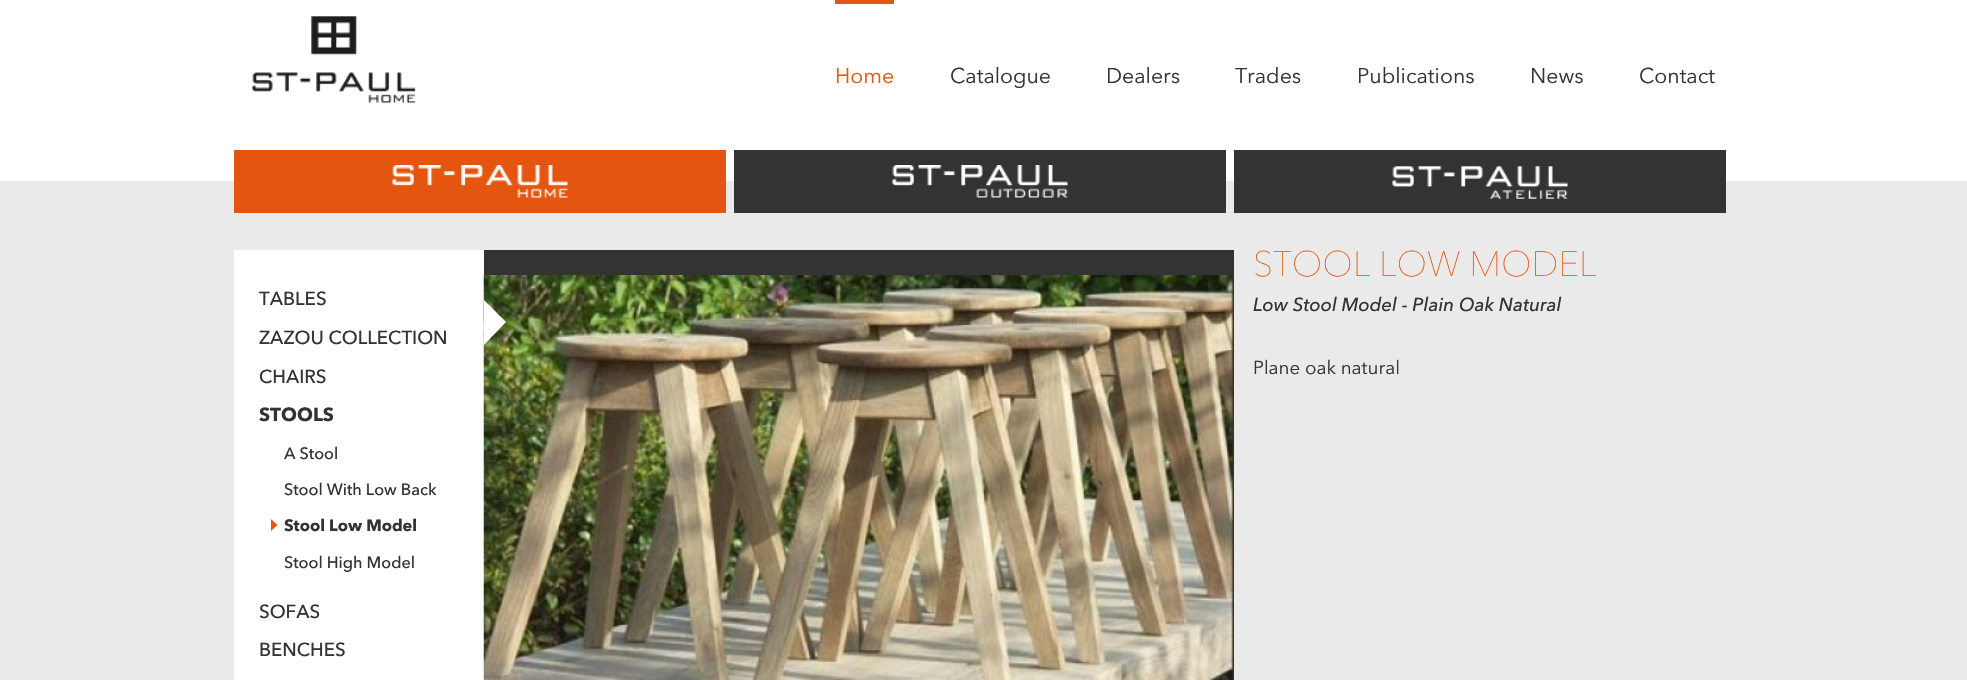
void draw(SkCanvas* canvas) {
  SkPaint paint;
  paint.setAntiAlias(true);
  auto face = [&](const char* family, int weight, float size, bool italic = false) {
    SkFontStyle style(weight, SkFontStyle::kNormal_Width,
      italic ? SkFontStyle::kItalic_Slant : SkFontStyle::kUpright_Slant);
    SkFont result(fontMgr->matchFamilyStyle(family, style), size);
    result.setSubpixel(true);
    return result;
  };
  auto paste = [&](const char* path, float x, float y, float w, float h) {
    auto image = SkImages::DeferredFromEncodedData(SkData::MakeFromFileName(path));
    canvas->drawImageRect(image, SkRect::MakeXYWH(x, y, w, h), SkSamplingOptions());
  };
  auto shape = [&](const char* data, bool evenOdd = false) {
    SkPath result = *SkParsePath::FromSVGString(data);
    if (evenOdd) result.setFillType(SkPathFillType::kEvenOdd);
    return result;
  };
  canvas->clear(0xffeaeaea);
  paint.setColor(0xffffffff);
  canvas->drawRect(SkRect::MakeXYWH(0, 0, 1967, 181), paint);
  paste("img/1.png", 252, 16, 164, 87);
  paint.setColor(0xffe4560f);
  canvas->drawRect(SkRect::MakeXYWH(835, 0, 59, 4), paint);
  canvas->drawRect(SkRect::MakeXYWH(234, 150, 492, 63), paint);
  paste("img/2.png", 392, 165, 176, 33);
  paint.setColor(0xff333333);
  canvas->drawRect(SkRect::MakeXYWH(734, 150, 492, 63), paint);
  paste("img/3.png", 892, 165, 176, 33);
  canvas->drawRect(SkRect::MakeXYWH(1234, 150, 492, 63), paint);
  paste("img/4.png", 1392, 166, 176, 33);
  paint.setColor(0xffffffff);
  canvas->drawRect(SkRect::MakeXYWH(234, 250, 250, 430), paint);
  paint.setColor(0xffe4560f);
  canvas->drawPath(shape("M271 531V519L277.5 525Z"), paint);
  paint.setColor(0xff333333);
  canvas->drawRect(SkRect::MakeXYWH(484, 250, 750, 430), paint);
  paste("img/5.png", 483, 275, 751, 405);
  paint.setColor(0xffffffff);
  canvas->drawPath(shape("M484 345V300L506 322Z"), paint);
  auto f0 = face("Avenir Next", 400, 21.25f);
  paint.setColor(0xffe4560f);
  canvas->drawString("Home", 835, 83, f0, paint);
  paint.setColor(0xff333333);
  {
    const struct { const char* s; float x, y; } items[] = {
      {"Catalogue", 950, 83},
      {"Dealers", 1106, 83},
      {"Trades", 1235, 83},
      {"Publications", 1357, 83},
      {"News", 1530, 83},
      {"Contact", 1639, 83},
    };
    for (auto [s, x, y] : items) {
      canvas->drawString(s, x, y, f0, paint);
    }
  }
  auto f1 = face("Avenir Next", 500, 18.75f);
  {
    const struct { const char* s; float x, y; } items[] = {
      {"TABLES", 259, 305},
      {"ZAZOU COLLECTION", 259, 344},
      {"CHAIRS", 259, 383},
    };
    for (auto [s, x, y] : items) {
      canvas->drawString(s, x, y, f1, paint);
    }
  }
  auto f2 = face("Avenir Next", 700, 18.75f);
  canvas->drawString("STOOLS", 259, 421, f2, paint);
  auto f3 = face("Avenir Next", 500, 16.25f);
  canvas->drawString("A Stool", 284, 459, f3, paint);
  canvas->drawString("Stool With Low Back", 284, 495, f3, paint);
  auto f4 = face("Avenir Next", 700, 16.25f);
  canvas->drawString("Stool Low Model", 284, 531, f4, paint);
  canvas->drawString("Stool High Model", 284, 568, f3, paint);
  canvas->drawString("SOFAS", 259, 618, f1, paint);
  canvas->drawString("BENCHES", 259, 656, f1, paint);
  auto f5 = face("Avenir Next", 300, 35);
  paint.setColor(0xffe4560f);
  canvas->drawString("STOOL LOW MODEL", 1253, 276, f5, paint);
  auto f6 = face("Avenir Next", 500, 18.75f, true);
  paint.setColor(0xff333333);
  canvas->drawString("Low Stool Model - Plain Oak Natural", 1253, 311, f6, paint);
  auto f7 = face("Avenir Next", 400, 18.75f);
  canvas->drawString("Plane oak natural", 1253, 374, f7, paint);
}
